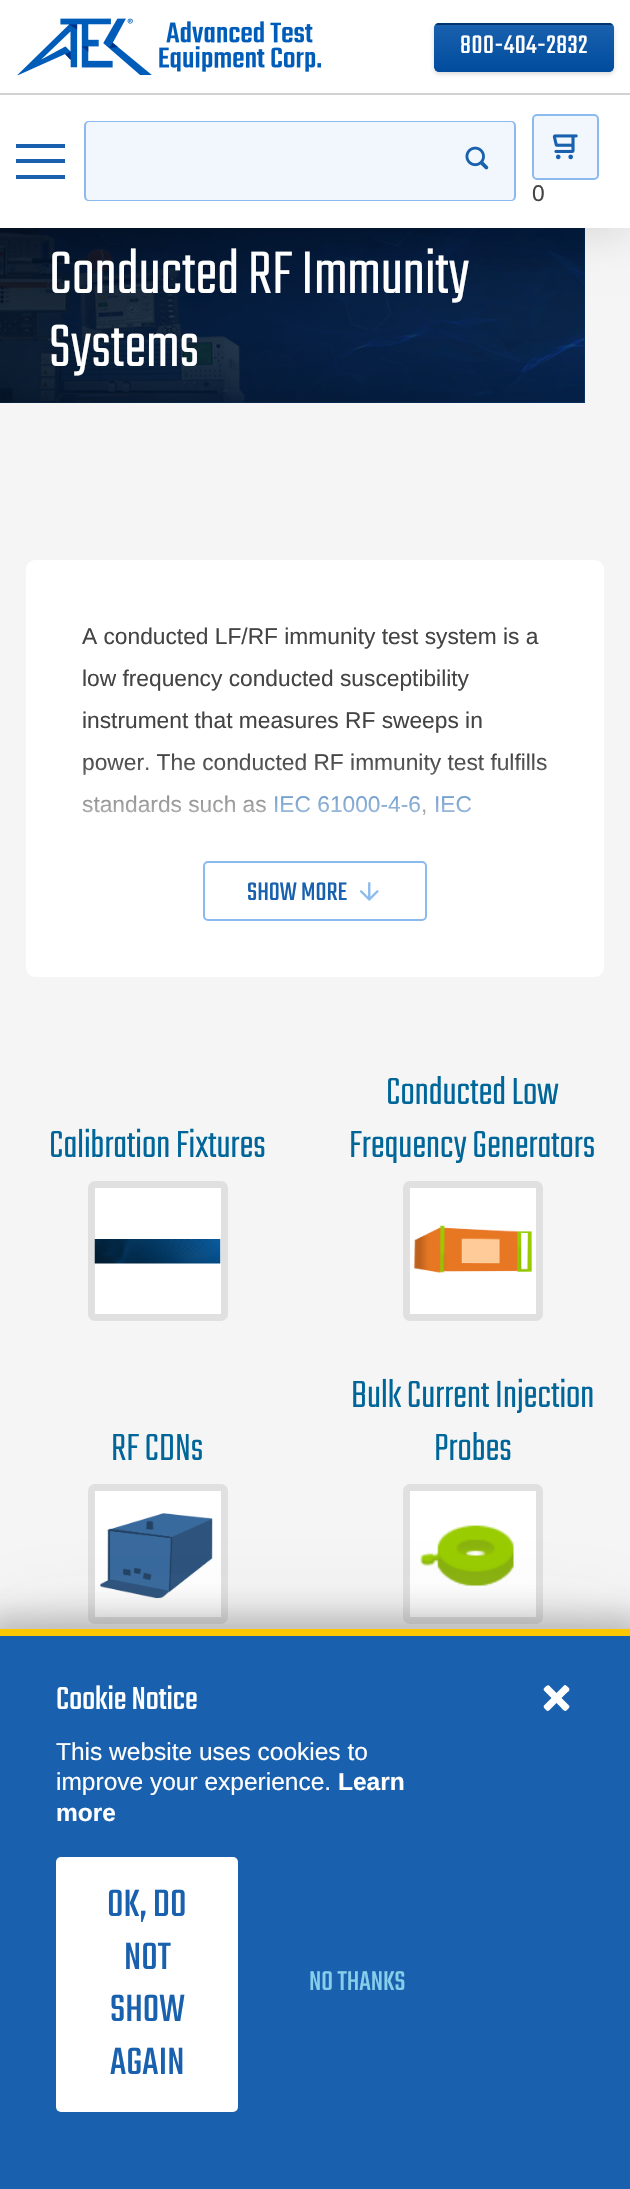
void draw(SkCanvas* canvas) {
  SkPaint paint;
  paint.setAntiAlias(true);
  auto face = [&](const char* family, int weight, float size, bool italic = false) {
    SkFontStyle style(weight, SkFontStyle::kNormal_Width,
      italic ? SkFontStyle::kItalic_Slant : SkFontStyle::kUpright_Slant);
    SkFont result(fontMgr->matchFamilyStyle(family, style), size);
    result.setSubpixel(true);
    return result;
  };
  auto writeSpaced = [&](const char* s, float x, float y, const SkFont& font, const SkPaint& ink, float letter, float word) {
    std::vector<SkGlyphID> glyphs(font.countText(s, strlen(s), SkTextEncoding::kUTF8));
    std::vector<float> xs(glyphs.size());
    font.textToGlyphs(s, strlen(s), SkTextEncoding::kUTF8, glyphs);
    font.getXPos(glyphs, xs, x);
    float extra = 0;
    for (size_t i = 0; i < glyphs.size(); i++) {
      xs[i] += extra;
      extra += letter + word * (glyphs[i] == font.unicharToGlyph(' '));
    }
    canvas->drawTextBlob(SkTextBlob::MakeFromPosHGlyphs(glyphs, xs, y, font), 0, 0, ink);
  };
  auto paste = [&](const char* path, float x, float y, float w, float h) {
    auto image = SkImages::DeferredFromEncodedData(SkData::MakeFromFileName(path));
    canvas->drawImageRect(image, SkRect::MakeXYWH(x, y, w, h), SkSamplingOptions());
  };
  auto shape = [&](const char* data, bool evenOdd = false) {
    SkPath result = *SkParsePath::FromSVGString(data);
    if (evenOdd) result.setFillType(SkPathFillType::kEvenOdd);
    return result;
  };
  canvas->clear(0xfff5f5f5);
  {
    const SkColor colors[] = {0xff0e4a88, 0xff074282, 0xff002e5e};
    const float stops[] = {0.03f, 0.39f, 0.93f};
    const SkPoint ends[] = {{251, 444}, {288, 186}};
    paint.setShader(SkGradientShader::MakeLinear(ends, colors, stops, 3, SkTileMode::kClamp));
    paint.setAlpha(255);
  }
  canvas->drawRect(SkRect::MakeXYWH(0, 228, 585, 175), paint);
  paste("img/4.png", 0, 228, 585, 175);
  {
    const SkColor colors[] = {0x00000000, 0x80000000};
    const float stops[] = {0, 1};
    const SkPoint ends[] = {{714, 315}, {-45, 315}};
    paint.setShader(SkGradientShader::MakeLinear(ends, colors, stops, 2, SkTileMode::kClamp));
    paint.setAlpha(255);
  }
  canvas->drawRect(SkRect::MakeXYWH(0, 228, 585, 175), paint);
  paint.setShader(nullptr);
  paint.setColor(0x26000000);
  paint.setMaskFilter(SkMaskFilter::MakeBlur(kNormal_SkBlurStyle, 22));
  canvas->drawRect(SkRect::MakeXYWH(0, 2, 630, 227), paint);
  paint.setMaskFilter(nullptr);
  paint.setColor(0xffffffff);
  canvas->drawRect(SkRect::MakeXYWH(0, 0, 630, 228), paint);
  paint.setColor(0xffd2d2d2);
  canvas->drawRect(SkRect::MakeXYWH(0, 93, 630, 2), paint);
  paste("img/1.png", 17, 18, 305, 57);
  paint.setColor(0x26000000);
  paint.setMaskFilter(SkMaskFilter::MakeBlur(kNormal_SkBlurStyle, 2));
  canvas->drawRoundRect(SkRect::MakeXYWH(434, 25, 180, 49), 5, 5, paint);
  paint.setMaskFilter(nullptr);
  canvas->save();
  canvas->clipPath(shape("M439 23H609C612 23 614 25 614 28V67C614 70 612 72 609 72H439C436 72 434 70 434 67V28C434 25 436 23 439 23Z"), true);
  {
    const SkColor colors[] = {0xff1961ae, 0xff014c9e, 0xff01346b};
    const float stops[] = {0, 0.5f, 1};
    const SkPoint ends[] = {{437, -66}, {437, 25}};
    paint.setShader(SkGradientShader::MakeLinear(ends, colors, stops, 3, SkTileMode::kClamp));
    paint.setAlpha(255);
  }
  canvas->drawRect(SkRect::MakeXYWH(434, 23, 180, 2), paint);
  {
    const SkColor colors[] = {0xff1961ae, 0xff014c9e, 0xff01346b};
    const float stops[] = {0, 0.5f, 1};
    const SkPoint ends[] = {{437, 25}, {437, 116}};
    paint.setShader(SkGradientShader::MakeLinear(ends, colors, stops, 3, SkTileMode::kClamp));
    paint.setAlpha(255);
  }
  canvas->drawPath(shape("M434 25H614V67C614 70 612 72 609 72H439C436 72 434 70 434 67Z"), paint);
  canvas->restore();
  paint.setShader(nullptr);
  {
    const struct { float x, y, w, h; SkColor color; } items[] = {
      {16, 144, 49, 4, 0xff1961ae},
      {16, 159, 49, 4, 0xff1961ae},
      {16, 175, 49, 4, 0xff1961ae},
    };
    for (auto [x, y, w, h, color] : items) {
      paint.setColor(color);
      canvas->drawRect(SkRect::MakeXYWH(x, y, w, h), paint);
    }
  }
  paint.setColor(0xfff2f7fd);
  canvas->drawPath(shape("M89 121H439V201H89C86 201 84 199 84 196V126C84 123 86 121 89 121Z"), paint);
  paint.setColor(0xff8bbbee);
  canvas->drawPath(shape("M89 121H439V201H89C86 201 84 199 84 196V126C84 123 86 121 89 121ZM89 122H439V200H89C87 200 86 198 86 196V126C86 124 87 122 89 122Z", true), paint);
  paint.setColor(0xfff2f7fd);
  canvas->drawPath(shape("M439 121H511C514 121 516 123 516 126V196C516 199 514 201 511 201H439Z"), paint);
  paint.setColor(0xff8bbbee);
  canvas->drawPath(shape("M439 121H511C514 121 516 123 516 126V196C516 199 514 201 511 201H439ZM439 122H511C513 122 514 124 514 126V196C514 198 513 200 511 200H439Z", true), paint);
  paste("img/2.png", 465, 146, 24, 24);
  paint.setColor(0xfff2f7fd);
  canvas->drawRoundRect(SkRect::MakeXYWH(533, 115, 65, 64), 4, 4, paint);
  paint.setStroke(true);
  paint.setStrokeWidth(2);
  paint.setColor(0xff8bbbee);
  canvas->drawRoundRect(SkRect::MakeXYWH(533, 115, 65, 64), 4, 4, paint);
  paste("img/3.png", 552, 134, 26, 26);
  paint.setStroke(false);
  paint.setColor(0xffffffff);
  canvas->drawRoundRect(SkRect::MakeXYWH(26, 560, 578, 417), 9, 9, paint);
  paint.setStroke(true);
  paint.setColor(0xff8bbbee);
  canvas->drawRoundRect(SkRect::MakeXYWH(204, 862, 222, 58), 4, 4, paint);
  paste("img/5.png", 360, 882, 19, 19);
  paint.setStroke(false);
  paint.setColor(0xffffffff);
  canvas->drawRoundRect(SkRect::MakeXYWH(91.5f, 1184.5f, 133, 133), 3.5f, 3.5f, paint);
  paint.setStroke(true);
  paint.setStrokeWidth(7);
  paint.setColor(0xffe0e0e0);
  canvas->drawRoundRect(SkRect::MakeXYWH(91.5f, 1184.5f, 133, 133), 3.5f, 3.5f, paint);
  paste("img/6.png", 94, 1239, 127, 25);
  paint.setStroke(false);
  paint.setColor(0xffffffff);
  canvas->drawRoundRect(SkRect::MakeXYWH(406.5f, 1184.5f, 133, 133), 3.5f, 3.5f, paint);
  paint.setStroke(true);
  paint.setColor(0xffe0e0e0);
  canvas->drawRoundRect(SkRect::MakeXYWH(406.5f, 1184.5f, 133, 133), 3.5f, 3.5f, paint);
  paste("img/7.png", 414, 1225, 118, 48);
  paint.setStroke(false);
  paint.setColor(0xffffffff);
  canvas->drawRoundRect(SkRect::MakeXYWH(91.5f, 1487.5f, 133, 133), 3.5f, 3.5f, paint);
  paint.setStroke(true);
  paint.setColor(0xffe0e0e0);
  canvas->drawRoundRect(SkRect::MakeXYWH(91.5f, 1487.5f, 133, 133), 3.5f, 3.5f, paint);
  paste("img/8.png", 100, 1513, 113, 86);
  paint.setStroke(false);
  paint.setColor(0xffffffff);
  canvas->drawRoundRect(SkRect::MakeXYWH(406.5f, 1487.5f, 133, 133), 3.5f, 3.5f, paint);
  paint.setStroke(true);
  paint.setColor(0xffe0e0e0);
  canvas->drawRoundRect(SkRect::MakeXYWH(406.5f, 1487.5f, 133, 133), 3.5f, 3.5f, paint);
  paste("img/9.png", 420, 1525, 94, 61);
  paint.setStroke(false);
  paint.setColor(0x1a444444);
  paint.setMaskFilter(SkMaskFilter::MakeBlur(kNormal_SkBlurStyle, 49));
  canvas->drawRect(SkRect::MakeXYWH(0, 1629, 630, 560), paint);
  paint.setMaskFilter(nullptr);
  paint.setColor(0x4d444444);
  paint.setMaskFilter(SkMaskFilter::MakeBlur(kNormal_SkBlurStyle, 14));
  canvas->drawRect(SkRect::MakeXYWH(-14, 1615, 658, 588), paint);
  paint.setMaskFilter(nullptr);
  paint.setColor(0xff1961ae);
  canvas->drawRect(SkRect::MakeXYWH(0, 1636, 630, 553), paint);
  paint.setColor(0xffffc700);
  canvas->drawRect(SkRect::MakeXYWH(0, 1629, 630, 7), paint);
  paint.setColor(0xffffffff);
  canvas->drawPath(shape("M544 1705.5L564 1685.5C565.5 1684 567 1686.5 568.5 1687.5C571 1690.5 568 1691.5 565.5 1694L549 1710.5L547.5 1711C546.5 1710.5 542.5 1707.5 544 1705.5Z"), paint);
  canvas->drawPath(shape("M549 1685.5L569 1705.5C570.5 1707 568 1709 567 1710C564.5 1712.5 563 1709.5 560.5 1707L544 1690.5L543.5 1689C544 1688 547.5 1684 549 1685.5Z"), paint);
  canvas->drawRoundRect(SkRect::MakeXYWH(56, 1857, 182, 255), 5, 5, paint);
  auto f0 = face("Teko", 400, 28);
  writeSpaced("800-404-2832", 460, 53, f0, paint, 0.6f, 0);
  auto f1 = face("Liberation Sans", 400, 22.75f);
  paint.setColor(0xff444444);
  canvas->drawString("0", 532, 201, f1, paint);
  auto f2 = face("Teko", 300, 66.5f);
  paint.setColor(0xffffffff);
  canvas->drawString("Conducted RF Immunity", 49, 293, f2, paint);
  canvas->drawString("Systems", 49, 366, f2, paint);
  paint.setColor(0xff444444);
  {
    const struct { const char* s; float x, y; } items[] = {
      {"A conducted LF/RF immunity test system is a", 82, 644},
      {"low frequency conducted susceptibility", 82, 686},
      {"instrument that measures RF sweeps in", 82, 728},
      {"power. The conducted RF immunity test fulfills", 82, 770},
      {"standards such as", 82, 812},
    };
    for (auto [s, x, y] : items) {
      canvas->drawString(s, x, y, f1, paint);
    }
  }
  paint.setColor(0xff1961ae);
  canvas->drawString("IEC 61000-4-6", 273, 812, f1, paint);
  paint.setColor(0xff444444);
  canvas->drawString(",", 421, 812, f1, paint);
  paint.setColor(0xff1961ae);
  canvas->drawString("IEC", 434, 812, f1, paint);
  {
    const SkColor colors[] = {0x00ffffff, 0xffffffff};
    const float stops[] = {0, 0.83f};
    const SkPoint ends[] = {{315, 756}, {315, 879}};
    paint.setShader(SkGradientShader::MakeLinear(ends, colors, stops, 2, SkTileMode::kClamp));
    paint.setAlpha(255);
  }
  canvas->drawRect(SkRect::MakeXYWH(83, 758, 464, 57), paint);
  paint.setShader(nullptr);
  paint.setColor(0xff1961ae);
  canvas->drawString("SHOW MORE", 247, 900, f0, paint);
  auto f3 = face("Teko", 300, 42);
  paint.setColor(0xff006699);
  {
    const struct { const char* s; float x, y; } items[] = {
      {"Calibration Fixtures", 49, 1157},
      {"Conducted Low", 386, 1104},
      {"Frequency Generators", 349, 1157},
      {"RF CDNs", 111, 1460},
      {"Bulk Current Injection", 351, 1407},
      {"Probes", 434, 1460},
    };
    for (auto [s, x, y] : items) {
      canvas->drawString(s, x, y, f3, paint);
    }
  }
  auto f4 = face("Teko", 400, 35);
  paint.setColor(0xffffffff);
  canvas->drawString("Cookie Notice", 56, 1709, f4, paint);
  auto f5 = face("Liberation Sans", 400, 24.5f);
  canvas->drawString("This website uses cookies to", 56, 1760, f5, paint);
  canvas->drawString("improve your experience.", 56, 1790, f5, paint);
  auto f6 = face("Liberation Sans", 700, 24.5f);
  canvas->drawString("Learn", 338, 1790, f6, paint);
  canvas->drawString("more", 56, 1821, f6, paint);
  auto f7 = face("Teko", 400, 42);
  paint.setColor(0xff1961ae);
  {
    const struct { const char* s; float x, y; } items[] = {
      {"OK, DO", 107, 1916},
      {"NOT", 124, 1969},
      {"SHOW", 110, 2021},
      {"AGAIN", 110, 2074},
    };
    for (auto [s, x, y] : items) {
      canvas->drawString(s, x, y, f7, paint);
    }
  }
  auto f8 = face("Teko", 400, 30);
  paint.setColor(0xff87ceeb);
  canvas->drawString("NO THANKS", 309, 1990, f8, paint);
}
